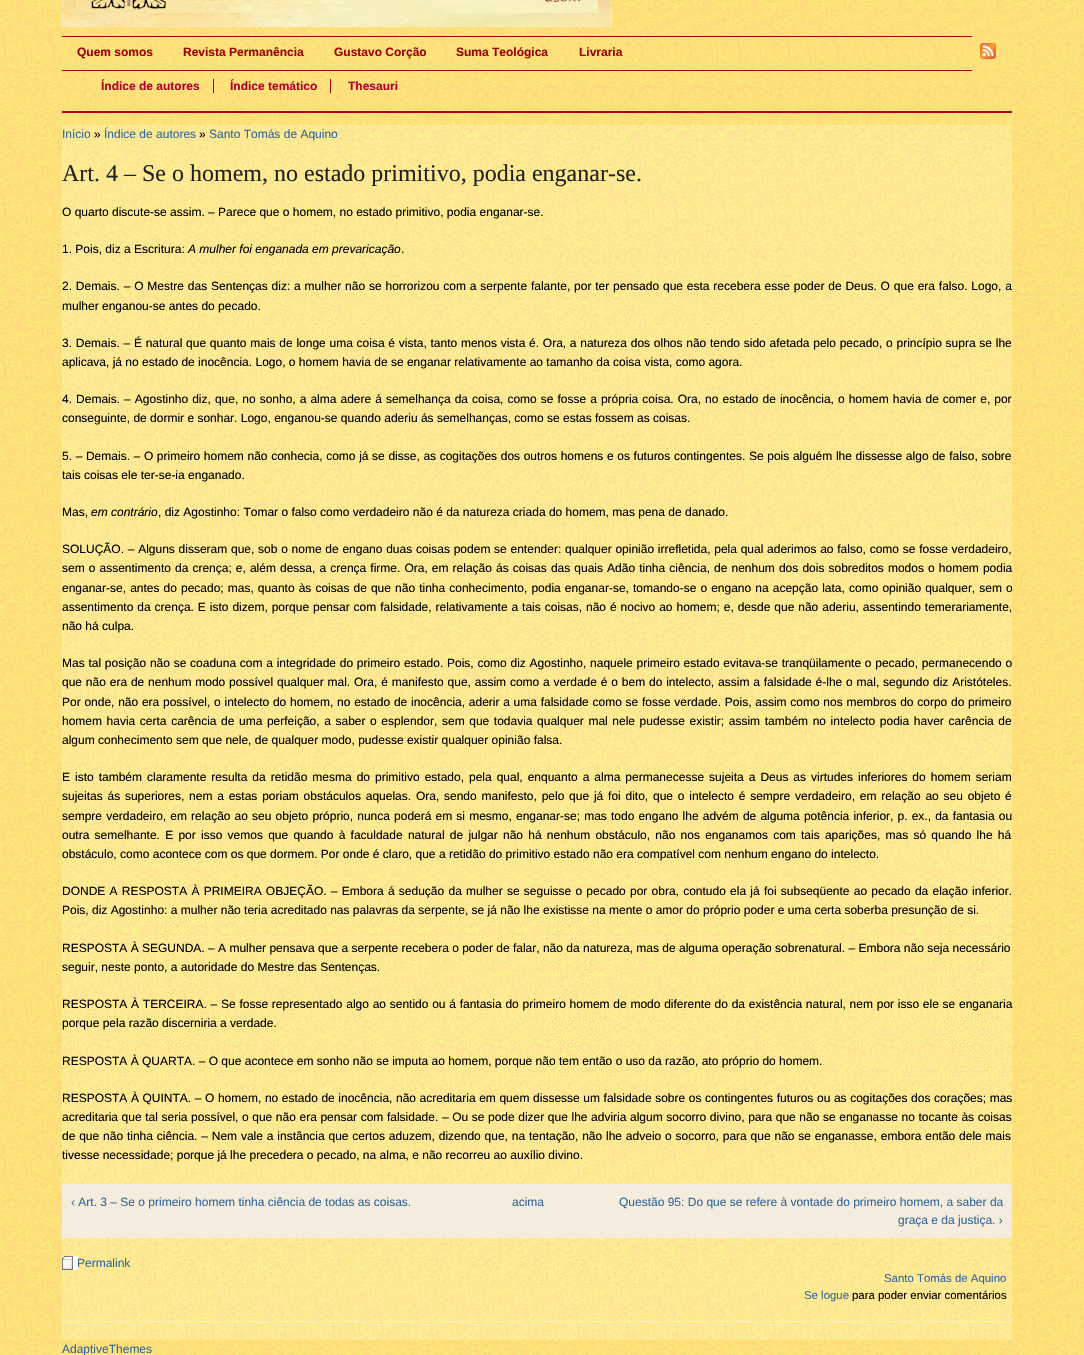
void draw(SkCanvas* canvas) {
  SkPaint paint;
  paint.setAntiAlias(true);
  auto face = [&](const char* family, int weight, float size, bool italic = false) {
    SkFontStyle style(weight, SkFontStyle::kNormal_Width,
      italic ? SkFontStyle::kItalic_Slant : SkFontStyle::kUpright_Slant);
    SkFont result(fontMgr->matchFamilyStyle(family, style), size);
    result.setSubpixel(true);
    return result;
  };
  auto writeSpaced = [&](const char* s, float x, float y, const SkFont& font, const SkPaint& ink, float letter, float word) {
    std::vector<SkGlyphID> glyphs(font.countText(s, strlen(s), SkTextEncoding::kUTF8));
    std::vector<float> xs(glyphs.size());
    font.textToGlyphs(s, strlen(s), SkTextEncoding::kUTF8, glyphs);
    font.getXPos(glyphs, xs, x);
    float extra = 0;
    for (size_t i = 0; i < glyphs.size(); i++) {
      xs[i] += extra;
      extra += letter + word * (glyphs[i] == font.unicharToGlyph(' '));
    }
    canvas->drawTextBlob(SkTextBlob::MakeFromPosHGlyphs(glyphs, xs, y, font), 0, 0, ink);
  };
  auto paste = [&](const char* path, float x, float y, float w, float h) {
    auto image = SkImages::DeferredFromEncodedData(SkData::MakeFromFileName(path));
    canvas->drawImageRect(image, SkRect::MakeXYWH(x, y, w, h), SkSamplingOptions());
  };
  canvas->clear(0xffffffff);
  paste("img/1.png", 0, 0, 1084, 1355);
  paste("img/2.png", 62, 0, 550, 27);
  paint.setColor(0xffa00002);
  canvas->drawRect(SkRect::MakeXYWH(62, 36, 910, 1), paint);
  canvas->drawRect(SkRect::MakeXYWH(62, 70, 910, 1), paint);
  paste("img/3.png", 980, 43, 16, 16);
  {
    const struct { float x, y, w, h; SkColor color; } items[] = {
      {62, 111, 950, 2, 0xffb20028},
      {213, 79, 1, 14, 0xffa00002},
      {330, 79, 1, 14, 0xffa00002},
    };
    for (auto [x, y, w, h, color] : items) {
      paint.setColor(color);
      canvas->drawRect(SkRect::MakeXYWH(x, y, w, h), paint);
    }
  }
  paste("img/4.png", 62, 125, 950, 1215);
  paint.setColor(0xfff4ecdd);
  canvas->drawRect(SkRect::MakeXYWH(62, 1321, 950, 1), paint);
  canvas->drawRect(SkRect::MakeXYWH(62, 1184, 950, 54), paint);
  paste("img/5.png", 62, 1256, 16, 14);
  auto f0 = face("Liberation Sans", 700, 12);
  paint.setColor(0xffa00002);
  {
    const struct { const char* s; float x, y; } items[] = {
      {"Quem somos", 77, 56},
      {"Revista Permanência", 183, 56},
      {"Gustavo Corção", 334, 56},
      {"Suma Teológica", 456, 56},
      {"Livraria", 579, 56},
    };
    for (auto [s, x, y] : items) {
      canvas->drawString(s, x, y, f0, paint);
    }
  }
  paint.setColor(0xffb20028);
  {
    const struct { const char* s; float x, y; } items[] = {
      {"Índice de autores", 101, 90},
      {"Índice temático", 230, 90},
      {"Thesauri", 348, 90},
    };
    for (auto [s, x, y] : items) {
      canvas->drawString(s, x, y, f0, paint);
    }
  }
  auto f1 = face("Liberation Sans", 400, 12);
  paint.setColor(0xff336699);
  canvas->drawString("Início", 62, 138, f1, paint);
  paint.setColor(0xff000000);
  canvas->drawString("»", 94, 138, f1, paint);
  paint.setColor(0xff336699);
  canvas->drawString("Índice de autores", 104, 138, f1, paint);
  paint.setColor(0xff000000);
  canvas->drawString("»", 199, 138, f1, paint);
  paint.setColor(0xff336699);
  canvas->drawString("Santo Tomás de Aquino", 209, 138, f1, paint);
  auto f2 = face("Liberation Serif", 400, 24);
  paint.setColor(0xff222222);
  canvas->drawString("Art. 4 – Se o homem, no estado primitivo, podia enganar-se.", 62, 181, f2, paint);
  paint.setColor(0xff000000);
  canvas->drawString("O quarto discute-se assim. – Parece que o homem, no estado primitivo, podia enganar-se.", 62, 216, f1, paint);
  canvas->drawString("1. Pois, diz a Escritura:", 62, 253, f1, paint);
  auto f3 = face("Liberation Sans", 400, 12, true);
  canvas->drawString("A mulher foi enganada em prevaricação", 188, 253, f3, paint);
  canvas->drawString(".", 401, 253, f1, paint);
  writeSpaced("2. Demais. – O Mestre das Sentenças diz: a mulher não se horrorizou com a serpente falante, por ter pensado que esta recebera esse poder de Deus. O que era falso. Logo, a", 62, 290, f1, paint, 0, 0.5f);
  canvas->drawString("mulher enganou-se antes do pecado.", 62, 310, f1, paint);
  writeSpaced("3. Demais. – É natural que quanto mais de longe uma coisa é vista, tanto menos vista é. Ora, a natureza dos olhos não tendo sido afetada pelo pecado, o princípio supra se lhe", 62, 347, f1, paint, 0, 0.4f);
  canvas->drawString("aplicava, já no estado de inocência. Logo, o homem havia de se enganar relativamente ao tamanho da coisa vista, como agora.", 62, 366, f1, paint);
  writeSpaced("4. Demais. – Agostinho diz, que, no sonho, a alma adere á semelhança da coisa, como se fosse a própria coisa. Ora, no estado de inocência, o homem havia de comer e, por", 62, 403, f1, paint, 0, 0.7f);
  canvas->drawString("conseguinte, de dormir e sonhar. Logo, enganou-se quando aderiu ás semelhanças, como se estas fossem as coisas.", 62, 422, f1, paint);
  writeSpaced("5. – Demais. – O primeiro homem não conhecia, como já se disse, as cogitações dos outros homens e os futuros contingentes. Se pois alguém lhe dissesse algo de falso, sobre", 62, 460, f1, paint, 0, 0.3f);
  canvas->drawString("tais coisas ele ter-se-ia enganado.", 62, 479, f1, paint);
  canvas->drawString("Mas,", 62, 516, f1, paint);
  canvas->drawString("em contrário", 91, 516, f3, paint);
  canvas->drawString(", diz Agostinho: Tomar o falso como verdadeiro não é da natureza criada do homem, mas pena de danado.", 158, 516, f1, paint);
  writeSpaced("SOLUÇÃO. – Alguns disseram que, sob o nome de engano duas coisas podem se entender: qualquer opinião irrefletida, pela qual aderimos ao falso, como se fosse verdadeiro,", 62, 553, f1, paint, 0, 0.4f);
  writeSpaced("sem o assentimento da crença; e, além dessa, a crença firme. Ora, em relação ás coisas das quais Adão tinha ciência, de nenhum dos dois sobreditos modos o homem podia", 62, 572, f1, paint, 0, 0.75f);
  writeSpaced("enganar-se, antes do pecado; mas, quanto às coisas de que não tinha conhecimento, podia enganar-se, tomando-se o engano na acepção lata, como opinião qualquer, sem o", 62, 592, f1, paint, 0, 0.75f);
  writeSpaced("assentimento da crença. E isto dizem, porque pensar com falsidade, relativamente a tais coisas, não é nocivo ao homem; e, desde que não aderiu, assentindo temerariamente,", 62, 611, f1, paint, 0, 0.6f);
  canvas->drawString("não há culpa.", 62, 630, f1, paint);
  writeSpaced("Mas tal posição não se coaduna com a integridade do primeiro estado. Pois, como diz Agostinho, naquele primeiro estado evitava-se tranqüilamente o pecado, permanecendo o", 62, 667, f1, paint, 0, 0.4f);
  writeSpaced("que não era de nenhum modo possível qualquer mal. Ora, é manifesto que, assim como a verdade é o bem do intelecto, assim a falsidade é-lhe o mal, segundo diz Aristóteles.", 62, 686, f1, paint, 0, 0.5f);
  writeSpaced("Por onde, não era possível, o intelecto do homem, no estado de inocência, aderir a uma falsidade como se fosse verdade. Pois, assim como nos membros do corpo do primeiro", 62, 706, f1, paint, 0, 0.4f);
  writeSpaced("homem havia certa carência de uma perfeição, a saber o esplendor, sem que todavia qualquer mal nele pudesse existir; assim também no intelecto podia haver carência de", 62, 725, f1, paint, 0, 1.25f);
  canvas->drawString("algum conhecimento sem que nele, de qualquer modo, pudesse existir qualquer opinião falsa.", 62, 744, f1, paint);
  writeSpaced("E isto também claramente resulta da retidão mesma do primitivo estado, pela qual, enquanto a alma permanecesse sujeita a Deus as virtudes inferiores do homem seriam", 62, 781, f1, paint, 0, 1.65f);
  writeSpaced("sujeitas ás superiores, nem a estas poriam obstáculos aquelas. Ora, sendo manifesto, pelo que já foi dito, que o intelecto é sempre verdadeiro, em relação ao seu objeto é", 62, 800, f1, paint, 0, 1.45f);
  writeSpaced("sempre verdadeiro, em relação ao seu objeto próprio, nunca poderá em si mesmo, enganar-se; mas todo engano lhe advém de alguma potência inferior, p. ex., da fantasia ou", 62, 820, f1, paint, 0, 0.8f);
  writeSpaced("outra semelhante. E por isso vemos que quando à faculdade natural de julgar não há nenhum obstáculo, não nos enganamos com tais aparições, mas só quando lhe há", 62, 839, f1, paint, 0, 1.9f);
  canvas->drawString("obstáculo, como acontece com os que dormem. Por onde é claro, que a retidão do primitivo estado não era compatível com nenhum engano do intelecto.", 62, 858, f1, paint);
  writeSpaced("DONDE A RESPOSTA À PRIMEIRA OBJEÇÃO. – Embora á sedução da mulher se seguisse o pecado por obra, contudo ela já foi subseqüente ao pecado da elação inferior.", 62, 895, f1, paint, 0, 0.9f);
  {
    const struct { const char* s; float x, y; } items[] = {
      {"Pois, diz Agostinho: a mulher não teria acreditado nas palavras da serpente, se já não lhe existisse na mente o amor do próprio poder e uma certa soberba presunção de si.", 62, 914},
      {"RESPOSTA À SEGUNDA. – A mulher pensava que a serpente recebera o poder de falar, não da natureza, mas de alguma operação sobrenatural. – Embora não seja necessário", 62, 952},
      {"seguir, neste ponto, a autoridade do Mestre das Sentenças.", 62, 971},
    };
    for (auto [s, x, y] : items) {
      canvas->drawString(s, x, y, f1, paint);
    }
  }
  writeSpaced("RESPOSTA À TERCEIRA. – Se fosse representado algo ao sentido ou á fantasia do primeiro homem de modo diferente do da existência natural, nem por isso ele se enganaria", 62, 1008, f1, paint, 0, 0.4f);
  canvas->drawString("porque pela razão discerniria a verdade.", 62, 1027, f1, paint);
  canvas->drawString("RESPOSTA À QUARTA. – O que acontece em sonho não se imputa ao homem, porque não tem então o uso da razão, ato próprio do homem.", 62, 1065, f1, paint);
  writeSpaced("RESPOSTA À QUINTA. – O homem, no estado de inocência, não acreditaria em quem dissesse um falsidade sobre os contingentes futuros ou as cogitações dos corações; mas", 62, 1102, f1, paint, 0, 0.25f);
  writeSpaced("acreditaria que tal seria possível, o que não era pensar com falsidade. – Ou se pode dizer que lhe adviria algum socorro divino, para que não se enganasse no tocante às coisas", 62, 1121, f1, paint, 0, 0.25f);
  writeSpaced("de que não tinha ciência. – Nem vale a instância que certos aduzem, dizendo que, na tentação, não lhe adveio o socorro, para que não se enganasse, embora então dele mais", 62, 1140, f1, paint, 0, 0.5f);
  canvas->drawString("tivesse necessidade; porque já lhe precedera o pecado, na alma, e não recorreu ao auxílio divino.", 62, 1159, f1, paint);
  paint.setColor(0xff336699);
  {
    const struct { const char* s; float x, y; } items[] = {
      {"‹ Art. 3 – Se o primeiro homem tinha ciência de todas as coisas.", 71, 1206},
      {"acima", 512, 1206},
      {"Questão 95: Do que se refere à vontade do primeiro homem, a saber da", 619, 1206},
      {"graça e da justiça. ›", 898, 1224},
      {"Permalink", 77, 1267},
    };
    for (auto [s, x, y] : items) {
      canvas->drawString(s, x, y, f1, paint);
    }
  }
  auto f4 = face("Liberation Sans", 400, 11.4f);
  canvas->drawString("Santo Tomás de Aquino", 884, 1282, f4, paint);
  canvas->drawString("Se logue", 804, 1299, f4, paint);
  paint.setColor(0xff000000);
  canvas->drawString("para poder enviar comentários", 852, 1299, f4, paint);
  paint.setColor(0xff336699);
  canvas->drawString("AdaptiveThemes", 62, 1353, f1, paint);
}
